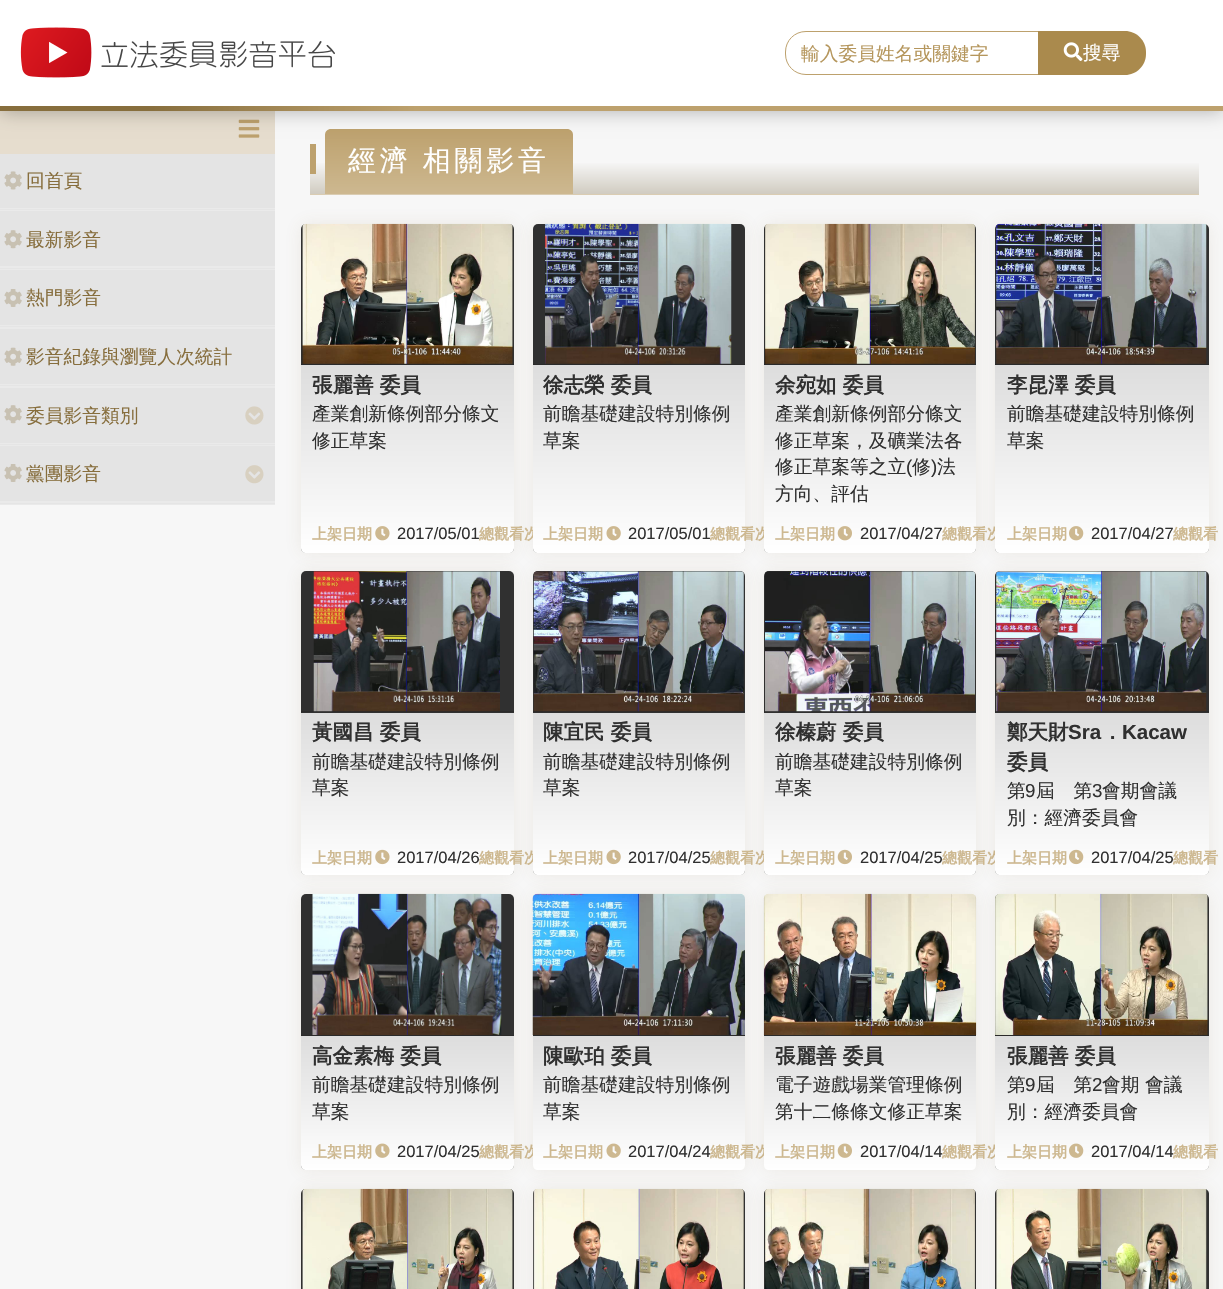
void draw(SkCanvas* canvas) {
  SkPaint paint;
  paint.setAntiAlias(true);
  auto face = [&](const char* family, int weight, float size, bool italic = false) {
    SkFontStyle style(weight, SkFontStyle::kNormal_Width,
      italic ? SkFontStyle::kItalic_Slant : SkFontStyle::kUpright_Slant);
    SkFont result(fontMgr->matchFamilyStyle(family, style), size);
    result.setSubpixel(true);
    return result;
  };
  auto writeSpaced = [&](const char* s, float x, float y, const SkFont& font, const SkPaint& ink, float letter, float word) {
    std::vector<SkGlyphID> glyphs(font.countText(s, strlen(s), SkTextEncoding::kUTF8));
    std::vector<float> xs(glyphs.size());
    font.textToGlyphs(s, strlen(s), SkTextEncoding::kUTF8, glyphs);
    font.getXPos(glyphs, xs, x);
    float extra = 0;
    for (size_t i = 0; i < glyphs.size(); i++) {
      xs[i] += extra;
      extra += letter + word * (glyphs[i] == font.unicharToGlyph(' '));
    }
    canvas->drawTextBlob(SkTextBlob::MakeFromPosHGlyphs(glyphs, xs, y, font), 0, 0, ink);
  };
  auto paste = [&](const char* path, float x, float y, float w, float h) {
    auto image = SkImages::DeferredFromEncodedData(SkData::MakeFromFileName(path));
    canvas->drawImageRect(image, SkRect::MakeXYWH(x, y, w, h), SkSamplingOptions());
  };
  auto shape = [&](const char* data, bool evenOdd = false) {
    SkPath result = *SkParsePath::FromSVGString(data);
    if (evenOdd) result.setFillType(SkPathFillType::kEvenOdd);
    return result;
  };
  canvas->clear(0xfff7f7f7);
  paint.setColor(0xffe6ddce);
  canvas->drawRect(SkRect::MakeXYWH(0, 111, 275, 43), paint);
  paste("img/3.png", 238, 119, 22, 19);
  {
    const SkColor colors[] = {0xfff7f7f7, 0xffd0cbc0};
    const float stops[] = {0.5f, 1};
    const SkPoint ends[] = {{754, 129}, {754, 194}};
    paint.setShader(SkGradientShader::MakeLinear(ends, colors, stops, 2, SkTileMode::kClamp));
    paint.setAlpha(255);
  }
  canvas->drawRect(SkRect::MakeXYWH(310, 163, 889, 31), paint);
  {
    const SkColor colors[] = {0xffbda16d, 0xffcdb890};
    const float stops[] = {0, 1};
    const SkPoint ends[] = {{449, 129}, {449, 194}};
    paint.setShader(SkGradientShader::MakeLinear(ends, colors, stops, 2, SkTileMode::kClamp));
    paint.setAlpha(255);
  }
  canvas->drawPath(shape("M331 129H567C570.5 129 573 131.5 573 135V194H325V135C325 131.5 327.5 129 331 129Z"), paint);
  paint.setShader(nullptr);
  paint.setColor(0x4d000000);
  paint.setMaskFilter(SkMaskFilter::MakeBlur(kNormal_SkBlurStyle, 9.5f));
  canvas->drawRect(SkRect::MakeXYWH(0, 0, 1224, 111), paint);
  paint.setMaskFilter(nullptr);
  {
    const SkColor colors[] = {0xff876e3d, 0xffbda16d};
    const float stops[] = {0.12f, 0.34f};
    const SkPoint ends[] = {{0, 56}, {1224, 56}};
    paint.setShader(SkGradientShader::MakeLinear(ends, colors, stops, 2, SkTileMode::kClamp));
    paint.setAlpha(255);
  }
  canvas->drawRect(SkRect::MakeXYWH(0, 106, 1223, 5), paint);
  paint.setShader(nullptr);
  paint.setColor(0xffffffff);
  canvas->drawRect(SkRect::MakeXYWH(0, 0, 1223, 106), paint);
  paste("img/1.png", 20, 27, 315, 51);
  paint.setStroke(true);
  paint.setStrokeWidth(1);
  paint.setColor(0xffbda16d);
  canvas->drawPath(shape("M806 31.5H1038.5V74.5H806C794.5 74.5 785.5 65.5 785.5 54V52C785.5 40.5 794.5 31.5 806 31.5Z"), paint);
  paint.setStroke(false);
  paint.setColor(0xffaa8a4d);
  canvas->drawPath(shape("M1038 31H1125C1136.5 31 1146 40.5 1146 52V54C1146 65.5 1136.5 75 1125 75H1038Z"), paint);
  paste("img/2.png", 1063, 42, 20, 19);
  {
    const struct { float x, y, w, h; SkColor color; } items[] = {
      {0, 208, 275, 297, 0xffeaeaea},
      {0, 209, 275, 1, 0xffe5e5e5},
      {0, 154, 275, 54, 0xffe4e4e4},
    };
    for (auto [x, y, w, h, color] : items) {
      paint.setColor(color);
      canvas->drawRect(SkRect::MakeXYWH(x, y, w, h), paint);
    }
  }
  paste("img/4.png", 4, 171, 18, 19);
  paint.setColor(0xffe5e5e5);
  canvas->drawRect(SkRect::MakeXYWH(0, 268, 275, 1), paint);
  paint.setColor(0xffe4e4e4);
  canvas->drawRect(SkRect::MakeXYWH(0, 211, 275, 55), paint);
  paste("img/5.png", 4, 230, 18, 19);
  paint.setColor(0xffe5e5e5);
  canvas->drawRect(SkRect::MakeXYWH(0, 326, 275, 1), paint);
  paint.setColor(0xffe4e4e4);
  canvas->drawRect(SkRect::MakeXYWH(0, 270, 275, 55), paint);
  paste("img/6.png", 4, 289, 18, 18);
  paint.setColor(0xffe5e5e5);
  canvas->drawRect(SkRect::MakeXYWH(0, 385, 275, 1), paint);
  paint.setColor(0xffe4e4e4);
  canvas->drawRect(SkRect::MakeXYWH(0, 329, 275, 55), paint);
  paste("img/7.png", 4, 347, 18, 19);
  paint.setColor(0xffe5e5e5);
  canvas->drawRect(SkRect::MakeXYWH(0, 444, 275, 1), paint);
  paint.setColor(0xffe4e4e4);
  canvas->drawRect(SkRect::MakeXYWH(0, 388, 275, 55), paint);
  paste("img/5.png", 4, 405, 18, 19);
  paste("img/8.png", 245, 406, 19, 19);
  paint.setColor(0xffe5e5e5);
  canvas->drawRect(SkRect::MakeXYWH(0, 503, 275, 1), paint);
  paint.setColor(0xffe4e4e4);
  canvas->drawRect(SkRect::MakeXYWH(0, 446, 275, 55), paint);
  paste("img/6.png", 4, 464, 18, 18);
  paste("img/9.png", 245, 465, 19, 19);
  paint.setColor(0xffdaccb2);
  canvas->drawRect(SkRect::MakeXYWH(310, 194, 889, 1), paint);
  paint.setColor(0xffbda16d);
  canvas->drawRect(SkRect::MakeXYWH(310, 144, 6, 30), paint);
  paint.setColor(0x1a876e3d);
  paint.setMaskFilter(SkMaskFilter::MakeBlur(kNormal_SkBlurStyle, 9));
  canvas->drawRoundRect(SkRect::MakeXYWH(301, 224, 213, 329), 5, 5, paint);
  paint.setMaskFilter(nullptr);
  paint.setColor(0xff303030);
  canvas->drawRoundRect(SkRect::MakeXYWH(301, 224, 213, 329), 5, 5, paint);
  paste("img/10.png", 302, 223, 211, 141);
  paint.setColor(0xff2a2a2a);
  canvas->drawRect(SkRect::MakeXYWH(301, 364, 213, 1), paint);
  {
    const SkColor colors[] = {0xffdddddd, 0xffffffff};
    const float stops[] = {0, 1};
    const SkPoint ends[] = {{408, 365}, {408, 553}};
    paint.setShader(SkGradientShader::MakeLinear(ends, colors, stops, 2, SkTileMode::kClamp));
    paint.setAlpha(255);
  }
  canvas->drawPath(shape("M301 365H514V548C514 551 512 553 509 553H306C303 553 301 551 301 548Z"), paint);
  paste("img/11.png", 375, 526, 15, 15);
  paint.setShader(nullptr);
  paint.setColor(0x1a876e3d);
  paint.setMaskFilter(SkMaskFilter::MakeBlur(kNormal_SkBlurStyle, 9));
  canvas->drawRoundRect(SkRect::MakeXYWH(533, 224, 212, 329), 5, 5, paint);
  paint.setMaskFilter(nullptr);
  auto f0 = face("WenQuanYi Zen Hei", 500, 18.75f);
  paint.setColor(0xffb5965c);
  canvas->drawString("輸入委員姓名或關鍵字", 801, 60, f0, paint);
  paint.setColor(0xffffffff);
  canvas->drawString("搜尋", 1083, 59, f0, paint);
  paint.setColor(0xff876e3d);
  {
    const struct { const char* s; float x, y; } items[] = {
      {"回首頁", 26, 187},
      {"最新影音", 26, 246},
      {"熱門影音", 26, 304},
      {"影音紀錄與瀏覽人次統計", 26, 363},
      {"委員影音類別", 26, 422},
      {"黨團影音", 26, 480},
    };
    for (auto [s, x, y] : items) {
      canvas->drawString(s, x, y, f0, paint);
    }
  }
  auto f1 = face("WenQuanYi Zen Hei", 500, 28);
  paint.setColor(0xffffffff);
  writeSpaced("經濟 相關影音", 348, 170, f1, paint, 3.75f, -1);
  auto f2 = face("WenQuanYi Zen Hei", 700, 20.5f);
  paint.setColor(0xff303030);
  canvas->drawString("張麗善 委員", 312, 392, f2, paint);
  canvas->drawString("產業創新條例部分條文", 312, 420, f0, paint);
  canvas->drawString("修正草案", 312, 447, f0, paint);
  auto f3 = face("WenQuanYi Zen Hei", 700, 15);
  paint.setColor(0xffcdb890);
  canvas->drawString("上架日期", 312, 539, f3, paint);
  auto f4 = face("Liberation Sans", 400, 16.5f);
  paint.setColor(0xff303030);
  canvas->drawString("2017/05/01", 397, 539, f4, paint);
  paint.setColor(0xffcdb890);
  canvas->drawString("總觀看次", 479, 539, f3, paint);
  paint.setColor(0xff303030);
  canvas->drawRoundRect(SkRect::MakeXYWH(533, 224, 212, 329), 5, 5, paint);
  paste("img/12.png", 545, 223, 187, 141);
  paint.setColor(0xff2a2a2a);
  canvas->drawRect(SkRect::MakeXYWH(533, 364, 212, 1), paint);
  {
    const SkColor colors[] = {0xffdddddd, 0xffffffff};
    const float stops[] = {0, 1};
    const SkPoint ends[] = {{639, 365}, {639, 553}};
    paint.setShader(SkGradientShader::MakeLinear(ends, colors, stops, 2, SkTileMode::kClamp));
    paint.setAlpha(255);
  }
  canvas->drawPath(shape("M533 365H745V548C745 551 743 553 740 553H538C535 553 533 551 533 548Z"), paint);
  paint.setShader(nullptr);
  paint.setColor(0xff303030);
  canvas->drawString("徐志榮 委員", 543, 392, f2, paint);
  canvas->drawString("前瞻基礎建設特別條例", 543, 420, f0, paint);
  canvas->drawString("草案", 543, 447, f0, paint);
  paste("img/13.png", 606, 526, 15, 15);
  paint.setColor(0xffcdb890);
  canvas->drawString("上架日期", 543, 539, f3, paint);
  paint.setColor(0xff303030);
  canvas->drawString("2017/05/01", 628, 539, f4, paint);
  paint.setColor(0xffcdb890);
  canvas->drawString("總觀看次", 710, 539, f3, paint);
  paint.setColor(0x1a876e3d);
  paint.setMaskFilter(SkMaskFilter::MakeBlur(kNormal_SkBlurStyle, 9));
  canvas->drawRoundRect(SkRect::MakeXYWH(764, 224, 212, 329), 5, 5, paint);
  paint.setMaskFilter(nullptr);
  paint.setColor(0xff303030);
  canvas->drawRoundRect(SkRect::MakeXYWH(764, 224, 212, 329), 5, 5, paint);
  paste("img/14.png", 765, 223, 210, 141);
  paint.setColor(0xff2a2a2a);
  canvas->drawRect(SkRect::MakeXYWH(764, 364, 212, 1), paint);
  {
    const SkColor colors[] = {0xffdddddd, 0xffffffff};
    const float stops[] = {0, 1};
    const SkPoint ends[] = {{870, 365}, {870, 553}};
    paint.setShader(SkGradientShader::MakeLinear(ends, colors, stops, 2, SkTileMode::kClamp));
    paint.setAlpha(255);
  }
  canvas->drawPath(shape("M764 365H976V548C976 551 974 553 971 553H769C766 553 764 551 764 548Z"), paint);
  paint.setShader(nullptr);
  paint.setColor(0xff303030);
  canvas->drawString("余宛如 委員", 775, 392, f2, paint);
  {
    const struct { const char* s; float x, y; } items[] = {
      {"產業創新條例部分條文", 775, 420},
      {"修正草案，及礦業法各", 775, 447},
      {"修正草案等之立", 775, 473},
    };
    for (auto [s, x, y] : items) {
      canvas->drawString(s, x, y, f0, paint);
    }
  }
  auto f5 = face("Liberation Sans", 400, 18.75f);
  canvas->drawString("(", 906, 473, f5, paint);
  canvas->drawString("修", 912, 473, f0, paint);
  canvas->drawString(")", 931, 473, f5, paint);
  canvas->drawString("法", 937, 473, f0, paint);
  canvas->drawString("方向、評估", 775, 500, f0, paint);
  paste("img/15.png", 837, 526, 15, 15);
  paint.setColor(0xffcdb890);
  canvas->drawString("上架日期", 775, 539, f3, paint);
  paint.setColor(0xff303030);
  canvas->drawString("2017/04/27", 860, 539, f4, paint);
  paint.setColor(0xffcdb890);
  canvas->drawString("總觀看次", 942, 539, f3, paint);
  paint.setColor(0x1a876e3d);
  paint.setMaskFilter(SkMaskFilter::MakeBlur(kNormal_SkBlurStyle, 9));
  canvas->drawRoundRect(SkRect::MakeXYWH(995, 224, 214, 329), 5, 5, paint);
  paint.setMaskFilter(nullptr);
  paint.setColor(0xff303030);
  canvas->drawRoundRect(SkRect::MakeXYWH(995, 224, 214, 329), 5, 5, paint);
  paste("img/16.png", 996, 223, 211, 141);
  paint.setColor(0xff2a2a2a);
  canvas->drawRect(SkRect::MakeXYWH(995, 364, 214, 1), paint);
  {
    const SkColor colors[] = {0xffdddddd, 0xffffffff};
    const float stops[] = {0, 1};
    const SkPoint ends[] = {{1102, 365}, {1102, 553}};
    paint.setShader(SkGradientShader::MakeLinear(ends, colors, stops, 2, SkTileMode::kClamp));
    paint.setAlpha(255);
  }
  canvas->drawPath(shape("M995 365H1209V548C1209 551 1207 553 1204 553H1000C997 553 995 551 995 548Z"), paint);
  paint.setShader(nullptr);
  paint.setColor(0xff303030);
  canvas->drawString("李昆澤 委員", 1007, 392, f2, paint);
  canvas->drawString("前瞻基礎建設特別條例", 1007, 420, f0, paint);
  canvas->drawString("草案", 1007, 447, f0, paint);
  paste("img/17.png", 1069, 526, 15, 15);
  paint.setColor(0xffcdb890);
  canvas->drawString("上架日期", 1007, 539, f3, paint);
  paint.setColor(0xff303030);
  canvas->drawString("2017/04/27", 1091, 539, f4, paint);
  paint.setColor(0xffcdb890);
  canvas->drawString("總觀看", 1173, 539, f3, paint);
  paint.setColor(0x1a876e3d);
  paint.setMaskFilter(SkMaskFilter::MakeBlur(kNormal_SkBlurStyle, 9));
  canvas->drawRoundRect(SkRect::MakeXYWH(301, 571, 213, 304), 5, 5, paint);
  paint.setMaskFilter(nullptr);
  paint.setColor(0xff303030);
  canvas->drawRoundRect(SkRect::MakeXYWH(301, 571, 213, 304), 5, 5, paint);
  paste("img/18.png", 313, 571, 187, 141);
  paint.setColor(0x1f000000);
  canvas->drawRect(SkRect::MakeXYWH(301, 711, 213, 1), paint);
  {
    const SkColor colors[] = {0xffdddddd, 0xffffffff};
    const float stops[] = {0, 1};
    const SkPoint ends[] = {{408, 713}, {408, 875}};
    paint.setShader(SkGradientShader::MakeLinear(ends, colors, stops, 2, SkTileMode::kClamp));
    paint.setAlpha(255);
  }
  canvas->drawPath(shape("M301 713H514V870C514 873 512 875 509 875H306C303 875 301 873 301 870Z"), paint);
  paint.setShader(nullptr);
  paint.setColor(0xff303030);
  canvas->drawString("黃國昌 委員", 312, 739, f2, paint);
  canvas->drawString("前瞻基礎建設特別條例", 312, 768, f0, paint);
  canvas->drawString("草案", 312, 794, f0, paint);
  paste("img/19.png", 375, 849, 15, 16);
  paint.setColor(0xffcdb890);
  canvas->drawString("上架日期", 312, 863, f3, paint);
  paint.setColor(0xff303030);
  canvas->drawString("2017/04/26", 397, 863, f4, paint);
  paint.setColor(0xffcdb890);
  canvas->drawString("總觀看次", 479, 863, f3, paint);
  paint.setColor(0x1a876e3d);
  paint.setMaskFilter(SkMaskFilter::MakeBlur(kNormal_SkBlurStyle, 9));
  canvas->drawRoundRect(SkRect::MakeXYWH(533, 571, 212, 304), 5, 5, paint);
  paint.setMaskFilter(nullptr);
  paint.setColor(0xff303030);
  canvas->drawRoundRect(SkRect::MakeXYWH(533, 571, 212, 304), 5, 5, paint);
  paste("img/20.png", 533, 571, 211, 141);
  paint.setColor(0x1f000000);
  canvas->drawRect(SkRect::MakeXYWH(533, 711, 212, 1), paint);
  {
    const SkColor colors[] = {0xffdddddd, 0xffffffff};
    const float stops[] = {0, 1};
    const SkPoint ends[] = {{639, 713}, {639, 875}};
    paint.setShader(SkGradientShader::MakeLinear(ends, colors, stops, 2, SkTileMode::kClamp));
    paint.setAlpha(255);
  }
  canvas->drawPath(shape("M533 713H745V870C745 873 743 875 740 875H538C535 875 533 873 533 870Z"), paint);
  paint.setShader(nullptr);
  paint.setColor(0xff303030);
  canvas->drawString("陳宜民 委員", 543, 739, f2, paint);
  canvas->drawString("前瞻基礎建設特別條例", 543, 768, f0, paint);
  canvas->drawString("草案", 543, 794, f0, paint);
  paste("img/21.png", 606, 849, 15, 16);
  paint.setColor(0xffcdb890);
  canvas->drawString("上架日期", 543, 863, f3, paint);
  paint.setColor(0xff303030);
  canvas->drawString("2017/04/25", 628, 863, f4, paint);
  paint.setColor(0xffcdb890);
  canvas->drawString("總觀看次", 710, 863, f3, paint);
  paint.setColor(0x1a876e3d);
  paint.setMaskFilter(SkMaskFilter::MakeBlur(kNormal_SkBlurStyle, 9));
  canvas->drawRoundRect(SkRect::MakeXYWH(764, 571, 212, 304), 5, 5, paint);
  paint.setMaskFilter(nullptr);
  paint.setColor(0xff303030);
  canvas->drawRoundRect(SkRect::MakeXYWH(764, 571, 212, 304), 5, 5, paint);
  paste("img/22.png", 765, 571, 210, 141);
  paint.setColor(0x1f000000);
  canvas->drawRect(SkRect::MakeXYWH(764, 711, 212, 1), paint);
  {
    const SkColor colors[] = {0xffdddddd, 0xffffffff};
    const float stops[] = {0, 1};
    const SkPoint ends[] = {{870, 713}, {870, 875}};
    paint.setShader(SkGradientShader::MakeLinear(ends, colors, stops, 2, SkTileMode::kClamp));
    paint.setAlpha(255);
  }
  canvas->drawPath(shape("M764 713H976V870C976 873 974 875 971 875H769C766 875 764 873 764 870Z"), paint);
  paint.setShader(nullptr);
  paint.setColor(0xff303030);
  canvas->drawString("徐榛蔚 委員", 775, 739, f2, paint);
  canvas->drawString("前瞻基礎建設特別條例", 775, 768, f0, paint);
  canvas->drawString("草案", 775, 794, f0, paint);
  paste("img/23.png", 837, 849, 15, 16);
  paint.setColor(0xffcdb890);
  canvas->drawString("上架日期", 775, 863, f3, paint);
  paint.setColor(0xff303030);
  canvas->drawString("2017/04/25", 860, 863, f4, paint);
  paint.setColor(0xffcdb890);
  canvas->drawString("總觀看次", 942, 863, f3, paint);
  paint.setColor(0x1a876e3d);
  paint.setMaskFilter(SkMaskFilter::MakeBlur(kNormal_SkBlurStyle, 9));
  canvas->drawRoundRect(SkRect::MakeXYWH(995, 571, 214, 304), 5, 5, paint);
  paint.setMaskFilter(nullptr);
  paint.setColor(0xff303030);
  canvas->drawRoundRect(SkRect::MakeXYWH(995, 571, 214, 304), 5, 5, paint);
  paste("img/24.png", 996, 571, 211, 141);
  paint.setColor(0x1f000000);
  canvas->drawRect(SkRect::MakeXYWH(995, 711, 214, 1), paint);
  {
    const SkColor colors[] = {0xffdddddd, 0xffffffff};
    const float stops[] = {0, 1};
    const SkPoint ends[] = {{1102, 713}, {1102, 875}};
    paint.setShader(SkGradientShader::MakeLinear(ends, colors, stops, 2, SkTileMode::kClamp));
    paint.setAlpha(255);
  }
  canvas->drawPath(shape("M995 713H1209V870C1209 873 1207 875 1204 875H1000C997 875 995 873 995 870Z"), paint);
  paint.setShader(nullptr);
  paint.setColor(0xff303030);
  canvas->drawString("鄭天財", 1007, 739, f2, paint);
  auto f6 = face("Liberation Sans", 700, 20.5f);
  canvas->drawString("Sra", 1068, 739, f6, paint);
  canvas->drawString("．", 1102, 739, f2, paint);
  canvas->drawString("Kacaw", 1122, 739, f6, paint);
  canvas->drawString("委員", 1007, 769, f2, paint);
  canvas->drawString("第", 1007, 797, f0, paint);
  canvas->drawString("9", 1025, 797, f5, paint);
  canvas->drawString("屆　第", 1036, 797, f0, paint);
  canvas->drawString("3", 1092, 797, f5, paint);
  canvas->drawString("會期會議", 1102, 797, f0, paint);
  canvas->drawString("別：經濟委員會", 1007, 824, f0, paint);
  paste("img/25.png", 1069, 849, 15, 16);
  paint.setColor(0xffcdb890);
  canvas->drawString("上架日期", 1007, 863, f3, paint);
  paint.setColor(0xff303030);
  canvas->drawString("2017/04/25", 1091, 863, f4, paint);
  paint.setColor(0xffcdb890);
  canvas->drawString("總觀看", 1173, 863, f3, paint);
  paint.setColor(0x1a876e3d);
  paint.setMaskFilter(SkMaskFilter::MakeBlur(kNormal_SkBlurStyle, 9));
  canvas->drawRoundRect(SkRect::MakeXYWH(301, 894, 213, 276), 5, 5, paint);
  paint.setMaskFilter(nullptr);
  paint.setColor(0xff303030);
  canvas->drawRoundRect(SkRect::MakeXYWH(301, 894, 213, 276), 5, 5, paint);
  paste("img/26.png", 312, 893, 190, 142);
  paint.setColor(0xff2a2a2a);
  canvas->drawRect(SkRect::MakeXYWH(301, 1035, 213, 1), paint);
  {
    const SkColor colors[] = {0xffdddddd, 0xffffffff};
    const float stops[] = {0, 1};
    const SkPoint ends[] = {{408, 1036}, {408, 1170}};
    paint.setShader(SkGradientShader::MakeLinear(ends, colors, stops, 2, SkTileMode::kClamp));
    paint.setAlpha(255);
  }
  canvas->drawPath(shape("M301 1036H514V1165C514 1168 512 1170 509 1170H306C303 1170 301 1168 301 1165Z"), paint);
  paint.setShader(nullptr);
  paint.setColor(0xff303030);
  canvas->drawString("高金素梅 委員", 312, 1063, f2, paint);
  canvas->drawString("前瞻基礎建設特別條例", 312, 1091, f0, paint);
  canvas->drawString("草案", 312, 1118, f0, paint);
  paste("img/27.png", 375, 1143, 15, 15);
  paint.setColor(0xffcdb890);
  canvas->drawString("上架日期", 312, 1157, f3, paint);
  paint.setColor(0xff303030);
  canvas->drawString("2017/04/25", 397, 1157, f4, paint);
  paint.setColor(0xffcdb890);
  canvas->drawString("總觀看次", 479, 1157, f3, paint);
  paint.setColor(0x1a876e3d);
  paint.setMaskFilter(SkMaskFilter::MakeBlur(kNormal_SkBlurStyle, 9));
  canvas->drawRoundRect(SkRect::MakeXYWH(533, 894, 212, 276), 5, 5, paint);
  paint.setMaskFilter(nullptr);
  paste("img/28.png", 532, 893, 213, 142);
  paint.setColor(0xff2a2a2a);
  canvas->drawRect(SkRect::MakeXYWH(533, 1035, 212, 1), paint);
  {
    const SkColor colors[] = {0xffdddddd, 0xffffffff};
    const float stops[] = {0, 1};
    const SkPoint ends[] = {{639, 1036}, {639, 1170}};
    paint.setShader(SkGradientShader::MakeLinear(ends, colors, stops, 2, SkTileMode::kClamp));
    paint.setAlpha(255);
  }
  canvas->drawPath(shape("M533 1036H745V1165C745 1168 743 1170 740 1170H538C535 1170 533 1168 533 1165Z"), paint);
  paint.setShader(nullptr);
  paint.setColor(0xff303030);
  canvas->drawString("陳歐珀 委員", 543, 1063, f2, paint);
  canvas->drawString("前瞻基礎建設特別條例", 543, 1091, f0, paint);
  canvas->drawString("草案", 543, 1118, f0, paint);
  paste("img/29.png", 606, 1143, 15, 15);
  paint.setColor(0xffcdb890);
  canvas->drawString("上架日期", 543, 1157, f3, paint);
  paint.setColor(0xff303030);
  canvas->drawString("2017/04/24", 628, 1157, f4, paint);
  paint.setColor(0xffcdb890);
  canvas->drawString("總觀看次", 710, 1157, f3, paint);
  paint.setColor(0x1a876e3d);
  paint.setMaskFilter(SkMaskFilter::MakeBlur(kNormal_SkBlurStyle, 9));
  canvas->drawRoundRect(SkRect::MakeXYWH(764, 894, 212, 276), 5, 5, paint);
  paint.setMaskFilter(nullptr);
  paste("img/30.png", 763, 893, 214, 142);
  paint.setColor(0xff2a2a2a);
  canvas->drawRect(SkRect::MakeXYWH(764, 1035, 212, 1), paint);
  {
    const SkColor colors[] = {0xffdddddd, 0xffffffff};
    const float stops[] = {0, 1};
    const SkPoint ends[] = {{870, 1036}, {870, 1170}};
    paint.setShader(SkGradientShader::MakeLinear(ends, colors, stops, 2, SkTileMode::kClamp));
    paint.setAlpha(255);
  }
  canvas->drawPath(shape("M764 1036H976V1165C976 1168 974 1170 971 1170H769C766 1170 764 1168 764 1165Z"), paint);
  paint.setShader(nullptr);
  paint.setColor(0xff303030);
  canvas->drawString("張麗善 委員", 775, 1063, f2, paint);
  canvas->drawString("電子遊戲場業管理條例", 775, 1091, f0, paint);
  canvas->drawString("第十二條條文修正草案", 775, 1118, f0, paint);
  paste("img/31.png", 837, 1143, 15, 15);
  paint.setColor(0xffcdb890);
  canvas->drawString("上架日期", 775, 1157, f3, paint);
  paint.setColor(0xff303030);
  canvas->drawString("2017/04/14", 860, 1157, f4, paint);
  paint.setColor(0xffcdb890);
  canvas->drawString("總觀看次", 942, 1157, f3, paint);
  paint.setColor(0x1a876e3d);
  paint.setMaskFilter(SkMaskFilter::MakeBlur(kNormal_SkBlurStyle, 9));
  canvas->drawRoundRect(SkRect::MakeXYWH(995, 894, 214, 276), 5, 5, paint);
  paint.setMaskFilter(nullptr);
  paint.setColor(0xff303030);
  canvas->drawRoundRect(SkRect::MakeXYWH(995, 894, 214, 276), 5, 5, paint);
  paste("img/32.png", 995, 893, 213, 142);
  paint.setColor(0xff2a2a2a);
  canvas->drawRect(SkRect::MakeXYWH(995, 1035, 214, 1), paint);
  {
    const SkColor colors[] = {0xffdddddd, 0xffffffff};
    const float stops[] = {0, 1};
    const SkPoint ends[] = {{1102, 1036}, {1102, 1170}};
    paint.setShader(SkGradientShader::MakeLinear(ends, colors, stops, 2, SkTileMode::kClamp));
    paint.setAlpha(255);
  }
  canvas->drawPath(shape("M995 1036H1209V1165C1209 1168 1207 1170 1204 1170H1000C997 1170 995 1168 995 1165Z"), paint);
  paint.setShader(nullptr);
  paint.setColor(0xff303030);
  canvas->drawString("張麗善 委員", 1007, 1063, f2, paint);
  canvas->drawString("第", 1007, 1091, f0, paint);
  canvas->drawString("9", 1025, 1091, f5, paint);
  canvas->drawString("屆　第", 1036, 1091, f0, paint);
  canvas->drawString("2", 1092, 1091, f5, paint);
  canvas->drawString("會期 會議", 1102, 1091, f0, paint);
  canvas->drawString("別：經濟委員會", 1007, 1118, f0, paint);
  paste("img/33.png", 1069, 1143, 15, 15);
  paint.setColor(0xffcdb890);
  canvas->drawString("上架日期", 1007, 1157, f3, paint);
  paint.setColor(0xff303030);
  canvas->drawString("2017/04/14", 1091, 1157, f4, paint);
  paint.setColor(0xffcdb890);
  canvas->drawString("總觀看", 1173, 1157, f3, paint);
  paint.setColor(0x1a876e3d);
  paint.setMaskFilter(SkMaskFilter::MakeBlur(kNormal_SkBlurStyle, 9));
  canvas->drawRoundRect(SkRect::MakeXYWH(301, 1189, 213, 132), 5, 5, paint);
  paint.setMaskFilter(nullptr);
  paint.setColor(0xff303030);
  canvas->drawPath(shape("M306 1189H509C512 1189 514 1191 514 1194V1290H301V1194C301 1191 303 1189 306 1189Z"), paint);
  paste("img/34.png", 302, 1188, 211, 101);
  paint.setColor(0x1a876e3d);
  paint.setMaskFilter(SkMaskFilter::MakeBlur(kNormal_SkBlurStyle, 9));
  canvas->drawRoundRect(SkRect::MakeXYWH(533, 1189, 212, 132), 5, 5, paint);
  paint.setMaskFilter(nullptr);
  paint.setColor(0xff303030);
  canvas->drawPath(shape("M538 1189H740C743 1189 745 1191 745 1194V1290H533V1194C533 1191 535 1189 538 1189Z"), paint);
  paste("img/35.png", 533, 1188, 211, 101);
  paint.setColor(0x1a876e3d);
  paint.setMaskFilter(SkMaskFilter::MakeBlur(kNormal_SkBlurStyle, 9));
  canvas->drawRoundRect(SkRect::MakeXYWH(764, 1189, 212, 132), 5, 5, paint);
  paint.setMaskFilter(nullptr);
  paint.setColor(0xff303030);
  canvas->drawPath(shape("M769 1189H971C974 1189 976 1191 976 1194V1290H764V1194C764 1191 766 1189 769 1189Z"), paint);
  paste("img/36.png", 765, 1188, 210, 101);
  paint.setColor(0x1a876e3d);
  paint.setMaskFilter(SkMaskFilter::MakeBlur(kNormal_SkBlurStyle, 9));
  canvas->drawRoundRect(SkRect::MakeXYWH(995, 1189, 214, 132), 5, 5, paint);
  paint.setMaskFilter(nullptr);
  paint.setColor(0xff303030);
  canvas->drawPath(shape("M1000 1189H1204C1207 1189 1209 1191 1209 1194V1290H995V1194C995 1191 997 1189 1000 1189Z"), paint);
  paste("img/37.png", 996, 1188, 211, 101);
}
